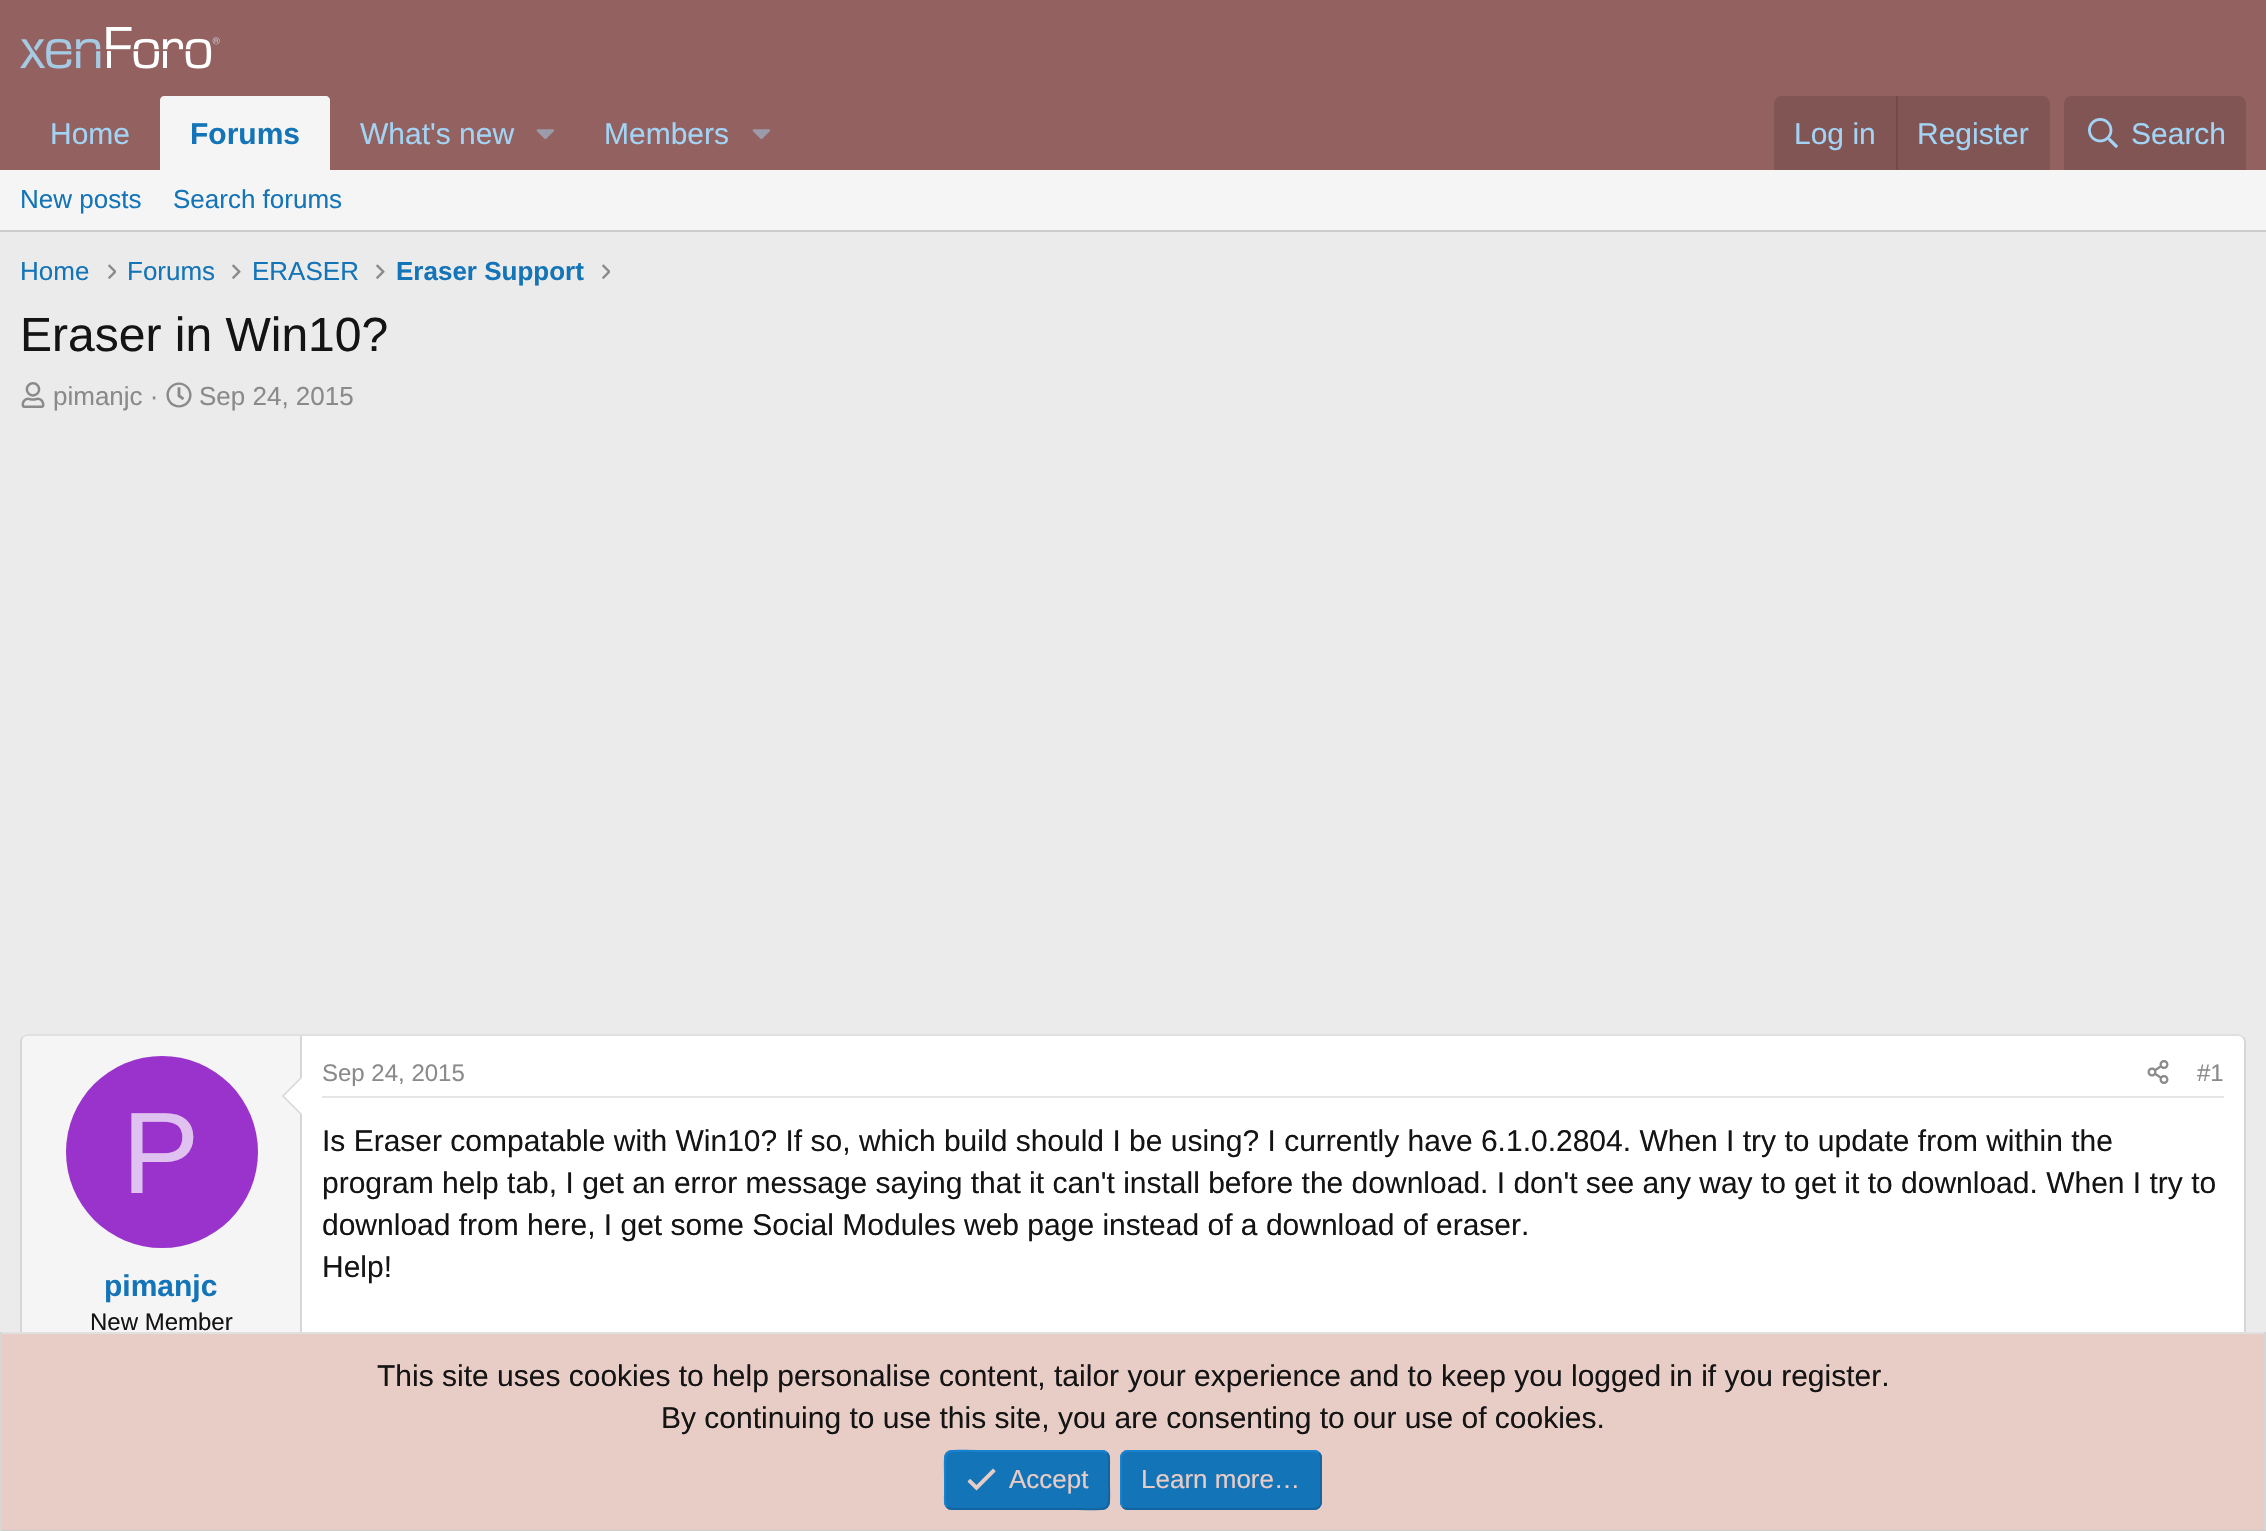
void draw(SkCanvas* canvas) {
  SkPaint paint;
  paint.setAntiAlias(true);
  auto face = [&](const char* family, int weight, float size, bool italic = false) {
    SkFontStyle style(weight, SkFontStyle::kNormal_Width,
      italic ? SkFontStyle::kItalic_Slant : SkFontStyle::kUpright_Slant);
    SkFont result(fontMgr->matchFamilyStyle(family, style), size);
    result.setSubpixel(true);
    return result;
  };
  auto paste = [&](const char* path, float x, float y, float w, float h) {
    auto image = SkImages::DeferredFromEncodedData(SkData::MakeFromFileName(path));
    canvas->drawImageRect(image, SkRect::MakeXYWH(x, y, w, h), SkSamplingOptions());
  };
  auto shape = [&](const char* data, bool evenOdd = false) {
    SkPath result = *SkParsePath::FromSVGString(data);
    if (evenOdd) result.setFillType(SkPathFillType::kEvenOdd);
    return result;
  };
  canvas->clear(0xffebebeb);
  paint.setColor(0xff93615f);
  canvas->drawRect(SkRect::MakeXYWH(0, 0, 2266, 170), paint);
  paste("img/1.png", 20, 27, 200, 42);
  paint.setColor(0xfff5f5f5);
  canvas->drawPath(shape("M164 96H326C328 96 330 98 330 100V170H160V100C160 98 162 96 164 96Z"), paint);
  paste("img/2.png", 536, 129, 18, 11);
  paste("img/2.png", 752, 129, 18, 11);
  paint.setColor(0xff805554);
  canvas->drawPath(shape("M1782 96H2042C2046.5 96 2050 99.5 2050 104V170H1774V104C1774 99.5 1777.5 96 1782 96Z"), paint);
  paint.setColor(0xff704b4a);
  canvas->drawRect(SkRect::MakeXYWH(1896, 96, 2, 74), paint);
  paint.setColor(0xff805554);
  canvas->drawPath(shape("M2072 96H2238C2242.5 96 2246 99.5 2246 104V170H2064V104C2064 99.5 2067.5 96 2072 96Z"), paint);
  paste("img/3.png", 2088, 118, 30, 30);
  paint.setColor(0xfff5f5f5);
  canvas->drawRect(SkRect::MakeXYWH(0, 170, 2266, 60), paint);
  paint.setColor(0xffcccccc);
  canvas->drawRect(SkRect::MakeXYWH(0, 230, 2266, 2), paint);
  paste("img/4.png", 108, 264, 8, 15);
  paste("img/5.png", 232, 264, 9, 15);
  paste("img/5.png", 376, 264, 9, 15);
  paste("img/4.png", 602, 264, 8, 15);
  paste("img/6.png", 21, 382, 24, 26);
  paste("img/7.png", 166, 382, 26, 26);
  paint.setColor(0xffffffff);
  canvas->drawRoundRect(SkRect::MakeXYWH(20, 1034, 2226, 328), 8, 8, paint);
  paint.setStroke(true);
  paint.setStrokeWidth(2);
  paint.setColor(0xffe0e0e0);
  canvas->drawPath(shape("M23 1037C24.5 1035.5 26 1035 28 1035H2238C2240 1035 2241.5 1035.5 2243 1037"), paint);
  paint.setColor(0xffd6d6d6);
  canvas->drawPath(shape("M2243 1037C2244.5 1038.5 2245 1040 2245 1042V1354C2245 1356 2244.5 1357.5 2243 1359"), paint);
  canvas->drawPath(shape("M23 1359C21.5 1357.5 21 1356 21 1354V1042C21 1040 21.5 1038.5 23 1037"), paint);
  paint.setStroke(false);
  paint.setColor(0xfff5f5f5);
  canvas->drawPath(shape("M28 1036H302V1360H28C24.5 1360 22 1357.5 22 1354V1042C22 1038.5 24.5 1036 28 1036Z"), paint);
  paint.setColor(0xffd6d6d6);
  canvas->drawRect(SkRect::MakeXYWH(300, 1036, 2, 296), paint);
  canvas->drawPath(shape("M302 1076V1116L282 1096Z"), paint);
  paint.setColor(0xffffffff);
  canvas->drawPath(shape("M302 1078V1114L284 1096Z"), paint);
  paint.setColor(0xff9933cc);
  canvas->drawCircle(162, 1152, 96, paint);
  paint.setColor(0xffe5e5e5);
  canvas->drawRect(SkRect::MakeXYWH(322, 1096, 1902, 2), paint);
  paste("img/8.png", 2147, 1060, 22, 24);
  {
    const struct { float x, y, w, h; SkColor color; } items[] = {
      {2, 1334, 2262, 196, 0xffe8ccc6},
      {0, 1332, 2266, 2, 0xffe0e0e0},
      {2264, 1332, 2, 199, 0xffd6d6d6},
      {0, 1530, 2266, 1, 0xffcccccc},
      {0, 1332, 2, 199, 0xffd6d6d6},
    };
    for (auto [x, y, w, h, color] : items) {
      paint.setColor(color);
      canvas->drawRect(SkRect::MakeXYWH(x, y, w, h), paint);
    }
  }
  paint.setColor(0xff1474b8);
  canvas->drawRoundRect(SkRect::MakeXYWH(944, 1450, 166, 60), 8, 8, paint);
  paint.setStroke(true);
  paint.setColor(0xff1265a1);
  canvas->drawPath(shape("M1107 1453C1110 1456 1109 1461.5 1109 1465.5V1480C1109 1514 1113.5 1509 1077 1509H952C950 1509 948.5 1508.5 947 1507"), paint);
  paint.setColor(0xff1782cf);
  canvas->drawPath(shape("M947 1507C944 1504 945 1498.5 945 1494.5V1480C945 1446 940.5 1451 977 1451H1102C1104 1451 1105.5 1451.5 1107 1453"), paint);
  paste("img/9.png", 967, 1468, 29, 23);
  paint.setStroke(false);
  paint.setColor(0xff1474b8);
  canvas->drawRoundRect(SkRect::MakeXYWH(1120, 1450, 202, 60), 8, 8, paint);
  paint.setStroke(true);
  paint.setColor(0xff1265a1);
  canvas->drawPath(shape("M1319 1453C1320.5 1454.5 1321 1456 1321 1458V1502C1321 1504 1320.5 1505.5 1319 1507C1317.5 1508.5 1316 1509 1314 1509H1128C1126 1509 1124.5 1508.5 1123 1507"), paint);
  paint.setColor(0xff1782cf);
  canvas->drawPath(shape("M1123 1507C1121.5 1505.5 1121 1504 1121 1502V1458C1121 1456 1121.5 1454.5 1123 1453C1124.5 1451.5 1126 1451 1128 1451H1314C1316 1451 1317.5 1451.5 1319 1453"), paint);
  auto f0 = face("Liberation Sans", 400, 30);
  paint.setStroke(false);
  paint.setColor(0xffa3d4f5);
  canvas->drawString("Home", 50, 144, f0, paint);
  auto f1 = face("Liberation Sans", 700, 30);
  paint.setColor(0xff1474b8);
  canvas->drawString("Forums", 190, 144, f1, paint);
  paint.setColor(0xffa3d4f5);
  {
    const struct { const char* s; float x, y; } items[] = {
      {"What's new", 360, 144},
      {"Members", 604, 144},
      {"Log in", 1794, 144},
      {"Register", 1917, 144},
      {"Search", 2131, 144},
    };
    for (auto [s, x, y] : items) {
      canvas->drawString(s, x, y, f0, paint);
    }
  }
  auto f2 = face("Liberation Sans", 400, 26);
  paint.setColor(0xff1474b8);
  {
    const struct { const char* s; float x, y; } items[] = {
      {"New posts", 20, 208},
      {"Search forums", 173, 208},
      {"Home", 20, 280},
      {"Forums", 127, 280},
      {"ERASER", 252, 280},
    };
    for (auto [s, x, y] : items) {
      canvas->drawString(s, x, y, f2, paint);
    }
  }
  auto f3 = face("Liberation Sans", 700, 26);
  canvas->drawString("Eraser Support", 396, 280, f3, paint);
  auto f4 = face("Liberation Sans", 400, 48);
  paint.setColor(0xff141414);
  canvas->drawString("Eraser in Win10?", 20, 351, f4, paint);
  paint.setColor(0xff8a8a8a);
  canvas->drawString("pimanjc ·", 53, 405, f2, paint);
  canvas->drawString("Sep 24, 2015", 199, 405, f2, paint);
  auto f5 = face("Liberation Sans", 400, 116);
  paint.setColor(0xffe0c2f0);
  canvas->drawString("P", 122, 1193, f5, paint);
  paint.setColor(0xff1474b8);
  canvas->drawString("pimanjc", 104, 1296, f1, paint);
  auto f6 = face("Liberation Sans", 400, 24);
  paint.setColor(0xff141414);
  canvas->drawString("New Member", 90, 1330, f6, paint);
  paint.setColor(0xff8a8a8a);
  canvas->drawString("Sep 24, 2015", 322, 1081, f6, paint);
  canvas->drawString("#1", 2197, 1081, f6, paint);
  paint.setColor(0xff141414);
  {
    const struct { const char* s; float x, y; } items[] = {
      {"Is Eraser compatable with Win10? If so, which build should I be using? I currently have 6.1.0.2804. When I try to update from within the", 322, 1151},
      {"program help tab, I get an error message saying that it can't install before the download. I don't see any way to get it to download. When I try to", 322, 1193},
      {"download from here, I get some Social Modules web page instead of a download of eraser.", 322, 1235},
      {"Help!", 322, 1277},
      {"This site uses cookies to help personalise content, tailor your experience and to keep you logged in if you register.", 377, 1386},
      {"By continuing to use this site, you are consenting to our use of cookies.", 661, 1428},
    };
    for (auto [s, x, y] : items) {
      canvas->drawString(s, x, y, f0, paint);
    }
  }
  paint.setColor(0xffe8ccc6);
  canvas->drawString("Accept", 1009, 1488, f2, paint);
  canvas->drawString("Learn more…", 1141, 1488, f2, paint);
}
